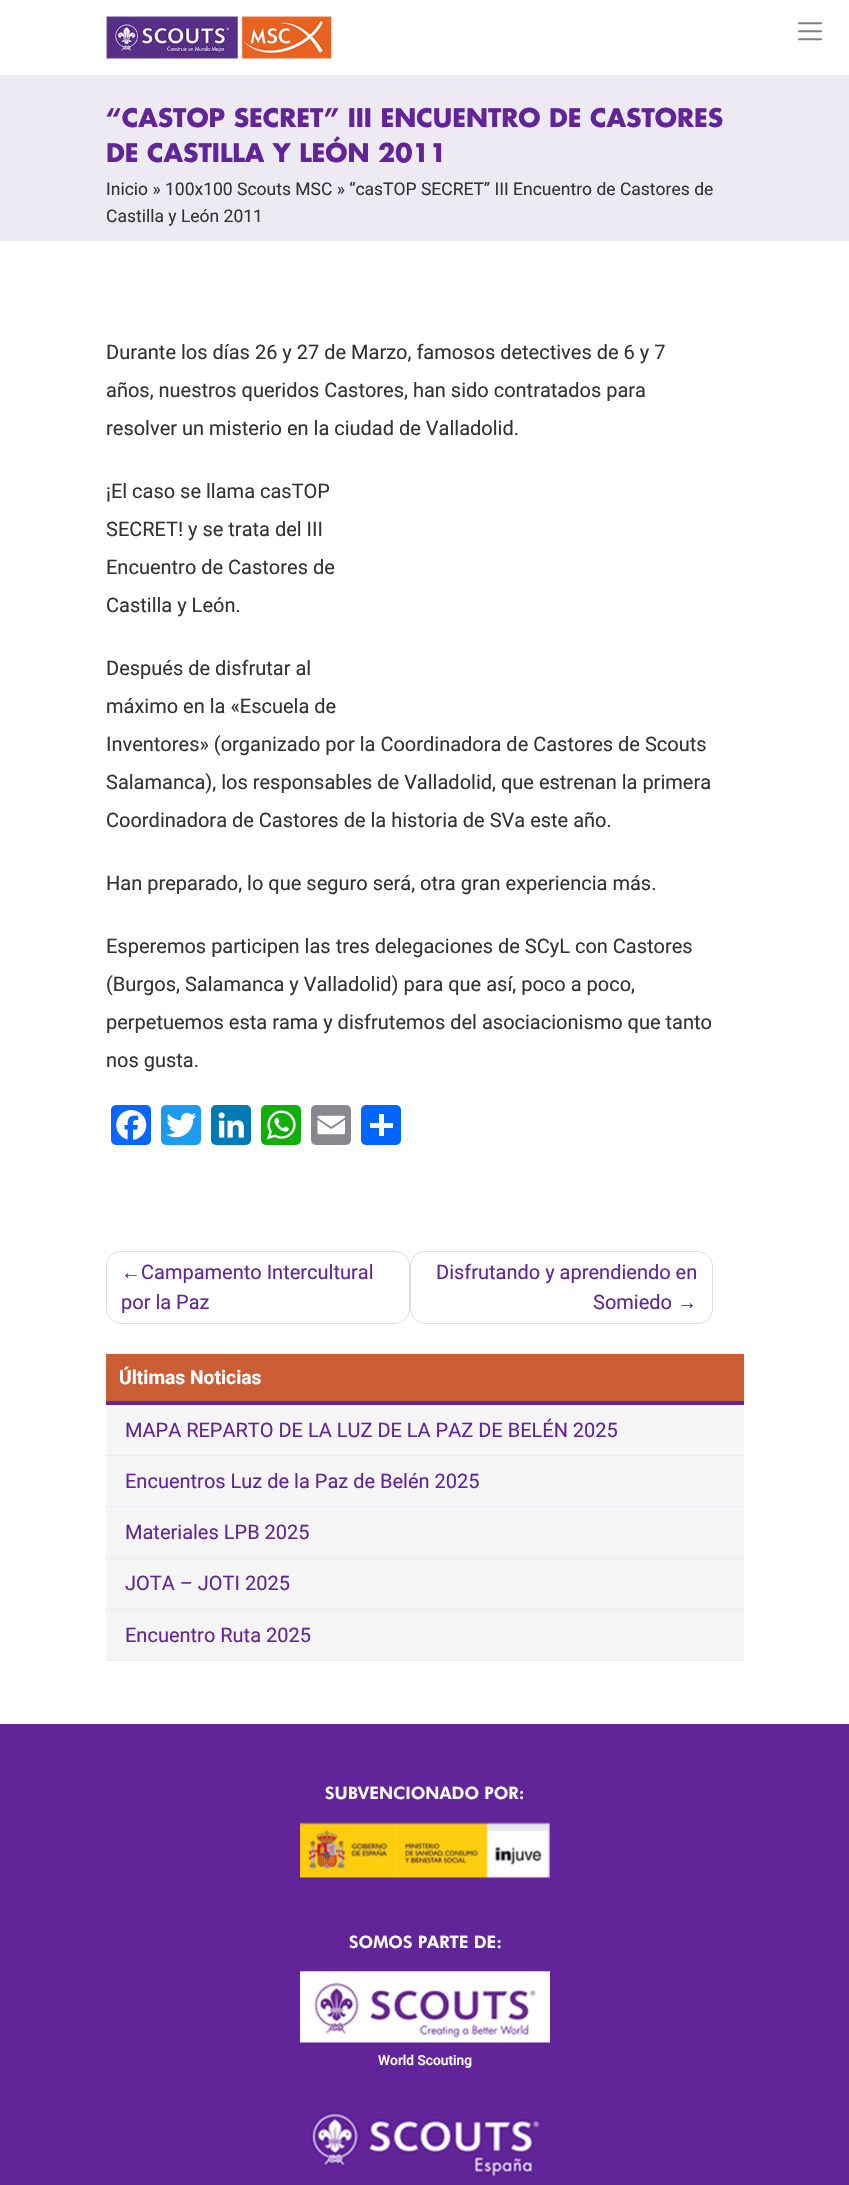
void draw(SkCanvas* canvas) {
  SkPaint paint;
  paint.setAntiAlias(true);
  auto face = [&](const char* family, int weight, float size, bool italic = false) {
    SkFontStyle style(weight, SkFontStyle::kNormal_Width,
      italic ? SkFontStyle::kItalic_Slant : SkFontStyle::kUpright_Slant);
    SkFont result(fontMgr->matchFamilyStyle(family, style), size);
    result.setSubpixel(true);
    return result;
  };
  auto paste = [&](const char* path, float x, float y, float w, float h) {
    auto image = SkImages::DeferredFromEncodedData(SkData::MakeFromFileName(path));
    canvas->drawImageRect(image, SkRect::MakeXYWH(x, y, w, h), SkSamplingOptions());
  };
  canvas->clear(0xffffffff);
  paste("img/1.png", 106, 16, 226, 43);
  paste("img/2.png", 798, 22, 24, 19);
  paint.setColor(0xffeeeaf3);
  canvas->drawRect(SkRect::MakeXYWH(0, 75, 849, 166), paint);
  paint.setColor(0xff0866ff);
  canvas->drawRoundRect(SkRect::MakeXYWH(111, 1105, 40, 40), 5, 5, paint);
  paste("img/3.png", 116, 1110, 31, 30);
  paint.setColor(0xff1d9bf0);
  canvas->drawRoundRect(SkRect::MakeXYWH(161, 1105, 40, 40), 5, 5, paint);
  paste("img/4.png", 166, 1112, 31, 26);
  paint.setColor(0xff007bb5);
  canvas->drawRoundRect(SkRect::MakeXYWH(211, 1105, 40, 40), 5, 5, paint);
  paste("img/5.png", 218, 1112, 26, 26);
  paint.setColor(0xff12af0a);
  canvas->drawRoundRect(SkRect::MakeXYWH(261, 1105, 40, 40), 5, 5, paint);
  paste("img/6.png", 267, 1110, 29, 30);
  paint.setColor(0xff888990);
  canvas->drawRoundRect(SkRect::MakeXYWH(311, 1105, 40, 40), 5, 5, paint);
  paste("img/7.png", 317, 1115, 28, 20);
  paint.setColor(0xff0166ff);
  canvas->drawRoundRect(SkRect::MakeXYWH(361, 1105, 40, 40), 5, 5, paint);
  paint.setColor(0xffffffff);
  canvas->drawRect(SkRect::MakeXYWH(379, 1114, 5, 22), paint);
  canvas->drawRect(SkRect::MakeXYWH(370, 1123, 23, 5), paint);
  paint.setStroke(true);
  paint.setStrokeWidth(1);
  paint.setColor(0xffdddddd);
  canvas->drawRoundRect(SkRect::MakeXYWH(106.5f, 1251.5f, 303, 72), 14.5f, 14.5f, paint);
  canvas->drawRoundRect(SkRect::MakeXYWH(410.5f, 1251.5f, 302, 72), 14.5f, 14.5f, paint);
  paint.setStroke(false);
  {
    const struct { float x, y, w, h; SkColor color; } items[] = {
      {106, 1354, 638, 47, 0xffcc5e35},
      {106, 1401, 638, 4, 0xff622599},
      {106, 1405, 638, 255, 0xfff5f5f5},
      {106, 1455, 638, 1, 0xffeeeaf3},
      {106, 1506, 638, 1, 0xffeeeaf3},
      {106, 1558, 638, 1, 0xffeeeaf3},
      {106, 1609, 638, 1, 0xffeeeaf3},
      {106, 1660, 638, 1, 0xffeeeaf3},
      {0, 1724, 849, 461, 0xff622599},
    };
    for (auto [x, y, w, h, color] : items) {
      paint.setColor(color);
      canvas->drawRect(SkRect::MakeXYWH(x, y, w, h), paint);
    }
  }
  paste("img/8.png", 300, 1822, 250, 56);
  paste("img/9.png", 300, 1971, 250, 72);
  paste("img/10.png", 310, 2112, 231, 66);
  auto f0 = face("Futura", 700, 25);
  canvas->drawString("“CASTOP SECRET” III ENCUENTRO DE CASTORES", 106, 127, f0, paint);
  canvas->drawString("DE CASTILLA Y LEÓN 2011", 106, 162, f0, paint);
  auto f1 = face("Roboto", 400, 17.5f);
  paint.setColor(0xff333333);
  canvas->drawString("Inicio » 100x100 Scouts MSC » “casTOP SECRET” III Encuentro de Castores de", 106, 195, f1, paint);
  canvas->drawString("Castilla y León 2011", 106, 222, f1, paint);
  auto f2 = face("Roboto", 400, 20);
  {
    const struct { const char* s; float x, y; } items[] = {
      {"Durante los días 26 y 27 de Marzo, famosos detectives de 6 y 7", 106, 359},
      {"años, nuestros queridos Castores, han sido contratados para", 106, 397},
      {"resolver un misterio en la ciudad de Valladolid.", 106, 435},
      {"¡El caso se llama casTOP", 106, 498},
      {"SECRET! y se trata del III", 106, 536},
      {"Encuentro de Castores de", 106, 574},
      {"Castilla y León.", 106, 612},
      {"Después de disfrutar al", 106, 675},
      {"máximo en la «Escuela de", 106, 713},
      {"Inventores» (organizado por la Coordinadora de Castores de Scouts", 106, 751},
      {"Salamanca), los responsables de Valladolid, que estrenan la primera", 106, 789},
      {"Coordinadora de Castores de la historia de SVa este año.", 106, 827},
      {"Han preparado, lo que seguro será, otra gran experiencia más.", 106, 890},
      {"Esperemos participen las tres delegaciones de SCyL con Castores", 106, 953},
      {"(Burgos, Salamanca y Valladolid) para que así, poco a poco,", 106, 991},
      {"perpetuemos esta rama y disfrutemos del asociacionismo que tanto", 106, 1029},
      {"nos gusta.", 106, 1067},
    };
    for (auto [s, x, y] : items) {
      canvas->drawString(s, x, y, f2, paint);
    }
  }
  auto f3 = face("Liberation Serif", 400, 20);
  paint.setColor(0xff622599);
  canvas->drawString("←", 121, 1279, f3, paint);
  {
    const struct { const char* s; float x, y; } items[] = {
      {"Campamento Intercultural", 141, 1279},
      {"por la Paz", 121, 1309},
      {"Disfrutando y aprendiendo en", 436, 1279},
      {"Somiedo", 593, 1309},
    };
    for (auto [s, x, y] : items) {
      canvas->drawString(s, x, y, f2, paint);
    }
  }
  canvas->drawString("→", 677, 1309, f3, paint);
  auto f4 = face("Roboto", 700, 19.25f);
  paint.setColor(0xffffffff);
  canvas->drawString("Últimas Noticias", 119, 1384, f4, paint);
  paint.setColor(0xff622599);
  {
    const struct { const char* s; float x, y; } items[] = {
      {"MAPA REPARTO DE LA LUZ DE LA PAZ DE BELÉN 2025", 125, 1437},
      {"Encuentros Luz de la Paz de Belén 2025", 125, 1488},
      {"Materiales LPB 2025", 125, 1539},
      {"JOTA – JOTI 2025", 125, 1590},
      {"Encuentro Ruta 2025", 125, 1642},
    };
    for (auto [s, x, y] : items) {
      canvas->drawString(s, x, y, f2, paint);
    }
  }
  auto f5 = face("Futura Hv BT", 900, 17);
  paint.setColor(0xffffffff);
  canvas->drawString("SUBVENCIONADO POR:", 325, 1799, f5, paint);
  canvas->drawString("SOMOS PARTE DE:", 349, 1948, f5, paint);
  auto f6 = face("Roboto", 500, 13.75f);
  canvas->drawString("World Scouting", 378, 2065, f6, paint);
}
